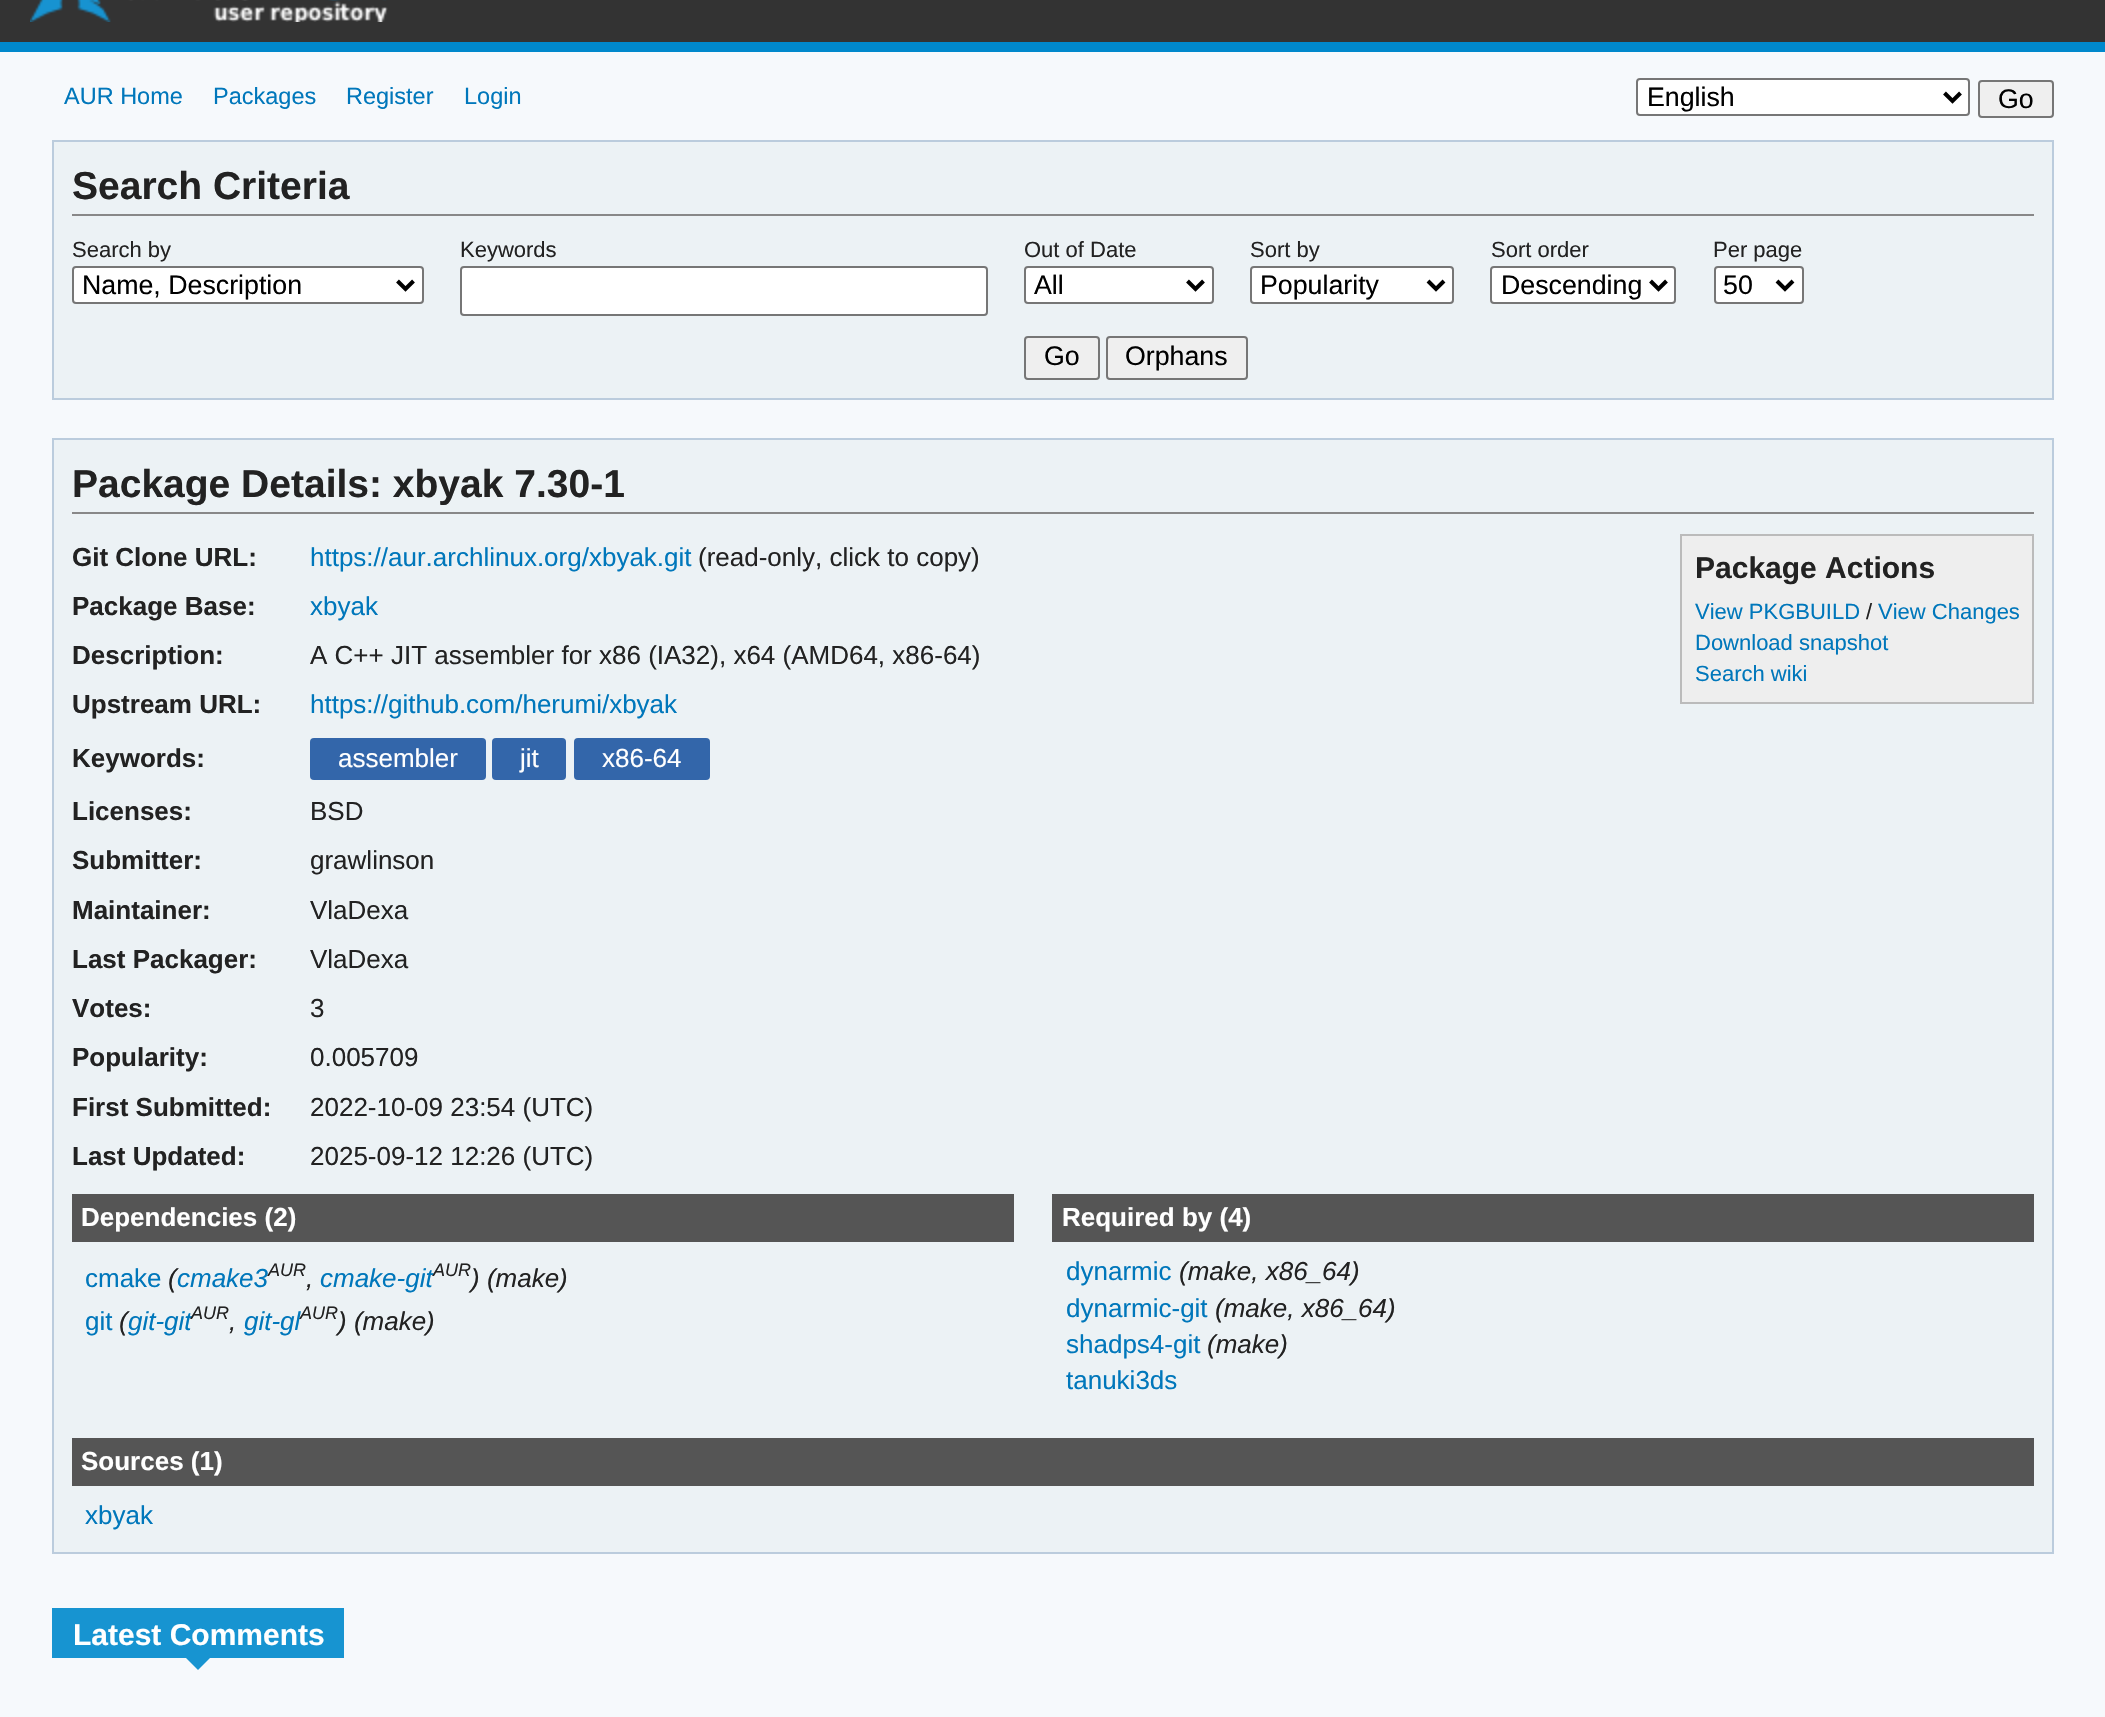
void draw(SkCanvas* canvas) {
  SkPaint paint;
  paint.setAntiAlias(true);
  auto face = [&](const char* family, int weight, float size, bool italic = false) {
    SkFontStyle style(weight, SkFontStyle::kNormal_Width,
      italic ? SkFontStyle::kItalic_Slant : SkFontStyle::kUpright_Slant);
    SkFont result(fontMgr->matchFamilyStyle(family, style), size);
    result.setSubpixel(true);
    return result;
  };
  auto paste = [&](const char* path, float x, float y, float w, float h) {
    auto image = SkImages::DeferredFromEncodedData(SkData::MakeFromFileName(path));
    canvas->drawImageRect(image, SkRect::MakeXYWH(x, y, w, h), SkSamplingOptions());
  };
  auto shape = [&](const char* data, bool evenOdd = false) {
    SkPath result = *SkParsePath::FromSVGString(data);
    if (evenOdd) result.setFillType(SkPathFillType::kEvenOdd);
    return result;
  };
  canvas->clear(0xfff6f9fc);
  paint.setColor(0xff333333);
  canvas->drawRect(SkRect::MakeXYWH(0, 0, 2105, 42), paint);
  paint.setColor(0xff0088cc);
  canvas->drawRect(SkRect::MakeXYWH(0, 42, 2105, 10), paint);
  paste("img/1.png", 30, 0, 358, 22);
  paint.setColor(0xffffffff);
  canvas->drawRoundRect(SkRect::MakeXYWH(1637, 79, 332, 36), 3, 3, paint);
  paint.setStroke(true);
  paint.setStrokeWidth(2);
  paint.setColor(0xff767676);
  canvas->drawRoundRect(SkRect::MakeXYWH(1637, 79, 332, 36), 3, 3, paint);
  paint.setStrokeWidth(4);
  paint.setColor(0xff000000);
  canvas->drawPath(shape("M1944.5 93L1952.5 101L1960.5 93"), paint);
  paint.setStroke(false);
  paint.setColor(0xffefefef);
  canvas->drawRoundRect(SkRect::MakeXYWH(1979, 81, 74, 36), 3, 3, paint);
  paint.setStroke(true);
  paint.setStrokeWidth(2);
  paint.setColor(0xff767676);
  canvas->drawRoundRect(SkRect::MakeXYWH(1979, 81, 74, 36), 3, 3, paint);
  paint.setStroke(false);
  paint.setColor(0xffecf2f5);
  canvas->drawRect(SkRect::MakeXYWH(53, 141, 2000, 258), paint);
  paint.setStroke(true);
  paint.setColor(0xffbbccdd);
  canvas->drawRect(SkRect::MakeXYWH(53, 141, 2000, 258), paint);
  paint.setStroke(false);
  paint.setColor(0xff888888);
  canvas->drawRect(SkRect::MakeXYWH(72, 214, 1962, 2), paint);
  paint.setColor(0xffffffff);
  canvas->drawRoundRect(SkRect::MakeXYWH(73, 267, 350, 36), 3, 3, paint);
  paint.setStroke(true);
  paint.setColor(0xff767676);
  canvas->drawRoundRect(SkRect::MakeXYWH(73, 267, 350, 36), 3, 3, paint);
  paint.setStrokeWidth(4);
  paint.setColor(0xff000000);
  canvas->drawPath(shape("M397.5 281L405.5 289L413.5 281"), paint);
  paint.setStroke(false);
  paint.setColor(0xffffffff);
  canvas->drawRoundRect(SkRect::MakeXYWH(461, 267, 526, 48), 3, 3, paint);
  paint.setStroke(true);
  paint.setStrokeWidth(2);
  paint.setColor(0xff767676);
  canvas->drawRoundRect(SkRect::MakeXYWH(461, 267, 526, 48), 3, 3, paint);
  paint.setStroke(false);
  paint.setColor(0xffffffff);
  canvas->drawRoundRect(SkRect::MakeXYWH(1025, 267, 188, 36), 3, 3, paint);
  paint.setStroke(true);
  paint.setColor(0xff767676);
  canvas->drawRoundRect(SkRect::MakeXYWH(1025, 267, 188, 36), 3, 3, paint);
  paint.setStrokeWidth(4);
  paint.setColor(0xff000000);
  canvas->drawPath(shape("M1187.5 281L1195.5 289L1203.5 281"), paint);
  paint.setStroke(false);
  paint.setColor(0xffffffff);
  canvas->drawRoundRect(SkRect::MakeXYWH(1251, 267, 202, 36), 3, 3, paint);
  paint.setStroke(true);
  paint.setStrokeWidth(2);
  paint.setColor(0xff767676);
  canvas->drawRoundRect(SkRect::MakeXYWH(1251, 267, 202, 36), 3, 3, paint);
  paint.setStrokeWidth(4);
  paint.setColor(0xff000000);
  canvas->drawPath(shape("M1428 281L1436 289L1444 281"), paint);
  paint.setStroke(false);
  paint.setColor(0xffffffff);
  canvas->drawRoundRect(SkRect::MakeXYWH(1491, 267, 184, 36), 3, 3, paint);
  paint.setStroke(true);
  paint.setStrokeWidth(2);
  paint.setColor(0xff767676);
  canvas->drawRoundRect(SkRect::MakeXYWH(1491, 267, 184, 36), 3, 3, paint);
  paint.setStrokeWidth(4);
  paint.setColor(0xff000000);
  canvas->drawPath(shape("M1650.5 281L1658.5 289L1666.5 281"), paint);
  paint.setStroke(false);
  paint.setColor(0xffffffff);
  canvas->drawRoundRect(SkRect::MakeXYWH(1715, 267, 88, 36), 3, 3, paint);
  paint.setStroke(true);
  paint.setStrokeWidth(2);
  paint.setColor(0xff767676);
  canvas->drawRoundRect(SkRect::MakeXYWH(1715, 267, 88, 36), 3, 3, paint);
  paint.setStrokeWidth(4);
  paint.setColor(0xff000000);
  canvas->drawPath(shape("M1777 281L1785 289L1793 281"), paint);
  paint.setStroke(false);
  paint.setColor(0xffefefef);
  canvas->drawRoundRect(SkRect::MakeXYWH(1025, 337, 74, 42), 3, 3, paint);
  paint.setStroke(true);
  paint.setStrokeWidth(2);
  paint.setColor(0xff767676);
  canvas->drawRoundRect(SkRect::MakeXYWH(1025, 337, 74, 42), 3, 3, paint);
  paint.setStroke(false);
  paint.setColor(0xffefefef);
  canvas->drawRoundRect(SkRect::MakeXYWH(1107, 337, 140, 42), 3, 3, paint);
  paint.setStroke(true);
  paint.setColor(0xff767676);
  canvas->drawRoundRect(SkRect::MakeXYWH(1107, 337, 140, 42), 3, 3, paint);
  paint.setStroke(false);
  paint.setColor(0xffecf2f5);
  canvas->drawRect(SkRect::MakeXYWH(53, 439, 2000, 1114), paint);
  paint.setStroke(true);
  paint.setColor(0xffbbccdd);
  canvas->drawRect(SkRect::MakeXYWH(53, 439, 2000, 1114), paint);
  paint.setStroke(false);
  paint.setColor(0xff888888);
  canvas->drawRect(SkRect::MakeXYWH(72, 512, 1962, 2), paint);
  paint.setColor(0xff3366aa);
  canvas->drawRoundRect(SkRect::MakeXYWH(310, 738, 176, 42), 4, 4, paint);
  canvas->drawRoundRect(SkRect::MakeXYWH(492, 738, 74, 42), 4, 4, paint);
  canvas->drawRoundRect(SkRect::MakeXYWH(574, 738, 136, 42), 4, 4, paint);
  paint.setColor(0xffeeeeee);
  canvas->drawRect(SkRect::MakeXYWH(1681, 535, 352, 168), paint);
  paint.setStroke(true);
  paint.setColor(0xffbbbbbb);
  canvas->drawRect(SkRect::MakeXYWH(1681, 535, 352, 168), paint);
  paint.setStroke(false);
  {
    const struct { float x, y, w, h; SkColor color; } items[] = {
      {72, 1194, 942, 48, 0xff555555},
      {1052, 1194, 982, 48, 0xff555555},
      {72, 1438, 1962, 48, 0xff555555},
      {52, 1608, 292, 50, 0xff1794d1},
    };
    for (auto [x, y, w, h, color] : items) {
      paint.setColor(color);
      canvas->drawRect(SkRect::MakeXYWH(x, y, w, h), paint);
    }
  }
  canvas->drawPath(shape("M186 1658H210L198 1670Z"), paint);
  auto f0 = face("Liberation Sans", 400, 23.5f);
  paint.setColor(0xff0077bb);
  {
    const struct { const char* s; float x, y; } items[] = {
      {"AUR Home", 64, 104},
      {"Packages", 213, 104},
      {"Register", 346, 104},
      {"Login", 464, 104},
    };
    for (auto [s, x, y] : items) {
      canvas->drawString(s, x, y, f0, paint);
    }
  }
  auto f1 = face("Liberation Sans", 400, 26.75f);
  paint.setColor(0xff000000);
  canvas->drawString("English", 1647, 106, f1, paint);
  canvas->drawString("Go", 1998, 108, f1, paint);
  auto f2 = face("Liberation Sans", 700, 39);
  paint.setColor(0xff222222);
  canvas->drawString("Search Criteria", 72, 199, f2, paint);
  auto f3 = face("Liberation Sans", 400, 22);
  canvas->drawString("Search by", 72, 257, f3, paint);
  paint.setColor(0xff000000);
  canvas->drawString("Name, Description", 82, 294, f1, paint);
  paint.setColor(0xff222222);
  canvas->drawString("Keywords", 460, 257, f3, paint);
  canvas->drawString("Out of Date", 1024, 257, f3, paint);
  paint.setColor(0xff000000);
  canvas->drawString("All", 1034, 294, f1, paint);
  paint.setColor(0xff222222);
  canvas->drawString("Sort by", 1250, 257, f3, paint);
  paint.setColor(0xff000000);
  canvas->drawString("Popularity", 1260, 294, f1, paint);
  paint.setColor(0xff222222);
  canvas->drawString("Sort order", 1491, 257, f3, paint);
  paint.setColor(0xff000000);
  canvas->drawString("Descending", 1501, 294, f1, paint);
  paint.setColor(0xff222222);
  canvas->drawString("Per page", 1713, 257, f3, paint);
  paint.setColor(0xff000000);
  {
    const struct { const char* s; float x, y; } items[] = {
      {"50", 1723, 294},
      {"Go", 1044, 365},
      {"Orphans", 1125, 365},
    };
    for (auto [s, x, y] : items) {
      canvas->drawString(s, x, y, f1, paint);
    }
  }
  paint.setColor(0xff222222);
  canvas->drawString("Package Details: xbyak 7.30-1", 72, 497, f2, paint);
  auto f4 = face("Liberation Sans", 700, 26);
  canvas->drawString("Git Clone URL:", 72, 566, f4, paint);
  auto f5 = face("Liberation Sans", 400, 26);
  paint.setColor(0xff0077bb);
  canvas->drawString("https://aur.archlinux.org/xbyak.git", 310, 566, f5, paint);
  paint.setColor(0xff222222);
  canvas->drawString("(read-only, click to copy)", 698, 566, f5, paint);
  canvas->drawString("Package Base:", 72, 615, f4, paint);
  paint.setColor(0xff0077bb);
  canvas->drawString("xbyak", 310, 615, f5, paint);
  paint.setColor(0xff222222);
  canvas->drawString("Description:", 72, 664, f4, paint);
  canvas->drawString("A C++ JIT assembler for x86 (IA32), x64 (AMD64, x86-64)", 310, 664, f5, paint);
  canvas->drawString("Upstream URL:", 72, 713, f4, paint);
  paint.setColor(0xff0077bb);
  canvas->drawString("https://github.com/herumi/xbyak", 310, 713, f5, paint);
  paint.setColor(0xff222222);
  canvas->drawString("Keywords:", 72, 767, f4, paint);
  paint.setColor(0xffffffff);
  {
    const struct { const char* s; float x, y; } items[] = {
      {"assembler", 338, 767},
      {"jit", 520, 767},
      {"x86-64", 602, 767},
    };
    for (auto [s, x, y] : items) {
      canvas->drawString(s, x, y, f5, paint);
    }
  }
  paint.setColor(0xff222222);
  canvas->drawString("Licenses:", 72, 820, f4, paint);
  canvas->drawString("BSD", 310, 820, f5, paint);
  canvas->drawString("Submitter:", 72, 869, f4, paint);
  canvas->drawString("grawlinson", 310, 869, f5, paint);
  canvas->drawString("Maintainer:", 72, 919, f4, paint);
  canvas->drawString("VlaDexa", 310, 919, f5, paint);
  canvas->drawString("Last Packager:", 72, 968, f4, paint);
  canvas->drawString("VlaDexa", 310, 968, f5, paint);
  canvas->drawString("Votes:", 72, 1017, f4, paint);
  canvas->drawString("3", 310, 1017, f5, paint);
  canvas->drawString("Popularity:", 72, 1066, f4, paint);
  canvas->drawString("0.005709", 310, 1066, f5, paint);
  canvas->drawString("First Submitted:", 72, 1116, f4, paint);
  canvas->drawString("2022-10-09 23:54 (UTC)", 310, 1116, f5, paint);
  canvas->drawString("Last Updated:", 72, 1165, f4, paint);
  canvas->drawString("2025-09-12 12:26 (UTC)", 310, 1165, f5, paint);
  auto f6 = face("Liberation Sans", 700, 30);
  canvas->drawString("Package Actions", 1695, 578, f6, paint);
  paint.setColor(0xff0077bb);
  canvas->drawString("View PKGBUILD", 1695, 619, f3, paint);
  paint.setColor(0xff222222);
  canvas->drawString("/", 1866, 619, f3, paint);
  paint.setColor(0xff0077bb);
  {
    const struct { const char* s; float x, y; } items[] = {
      {"View Changes", 1878, 619},
      {"Download snapshot", 1695, 650},
      {"Search wiki", 1695, 681},
    };
    for (auto [s, x, y] : items) {
      canvas->drawString(s, x, y, f3, paint);
    }
  }
  paint.setColor(0xffffffff);
  canvas->drawString("Dependencies (2)", 81, 1226, f4, paint);
  paint.setColor(0xff0077bb);
  canvas->drawString("cmake", 85, 1287, f5, paint);
  auto f7 = face("Liberation Sans", 400, 26, true);
  paint.setColor(0xff222222);
  canvas->drawString("(", 168, 1287, f7, paint);
  paint.setColor(0xff0077bb);
  canvas->drawString("cmake3", 177, 1287, f7, paint);
  auto f8 = face("Liberation Sans", 400, 18, true);
  paint.setColor(0xff222222);
  canvas->drawString("AUR", 268, 1276, f8, paint);
  canvas->drawString(",", 306, 1287, f7, paint);
  paint.setColor(0xff0077bb);
  canvas->drawString("cmake-git", 320, 1287, f7, paint);
  paint.setColor(0xff222222);
  canvas->drawString("AUR", 433, 1276, f8, paint);
  canvas->drawString(") (make)", 471, 1287, f7, paint);
  paint.setColor(0xff0077bb);
  canvas->drawString("git", 85, 1330, f5, paint);
  paint.setColor(0xff222222);
  canvas->drawString("(", 119, 1330, f7, paint);
  paint.setColor(0xff0077bb);
  canvas->drawString("git-git", 128, 1330, f7, paint);
  paint.setColor(0xff222222);
  canvas->drawString("AUR", 191, 1319, f8, paint);
  canvas->drawString(",", 229, 1330, f7, paint);
  paint.setColor(0xff0077bb);
  canvas->drawString("git-gl", 244, 1330, f7, paint);
  paint.setColor(0xff222222);
  canvas->drawString("AUR", 300, 1319, f8, paint);
  canvas->drawString(") (make)", 338, 1330, f7, paint);
  paint.setColor(0xffffffff);
  canvas->drawString("Required by (4)", 1062, 1226, f4, paint);
  paint.setColor(0xff0077bb);
  canvas->drawString("dynarmic", 1066, 1280, f5, paint);
  paint.setColor(0xff222222);
  canvas->drawString("(make, x86_64)", 1179, 1280, f7, paint);
  paint.setColor(0xff0077bb);
  canvas->drawString("dynarmic-git", 1066, 1317, f5, paint);
  paint.setColor(0xff222222);
  canvas->drawString("(make, x86_64)", 1215, 1317, f7, paint);
  paint.setColor(0xff0077bb);
  canvas->drawString("shadps4-git", 1066, 1353, f5, paint);
  paint.setColor(0xff222222);
  canvas->drawString("(make)", 1207, 1353, f7, paint);
  paint.setColor(0xff0077bb);
  canvas->drawString("tanuki3ds", 1066, 1389, f5, paint);
  paint.setColor(0xffffffff);
  canvas->drawString("Sources (1)", 81, 1470, f4, paint);
  paint.setColor(0xff0077bb);
  canvas->drawString("xbyak", 85, 1524, f5, paint);
  paint.setColor(0xffffffff);
  canvas->drawString("Latest Comments", 73, 1645, f6, paint);
}
